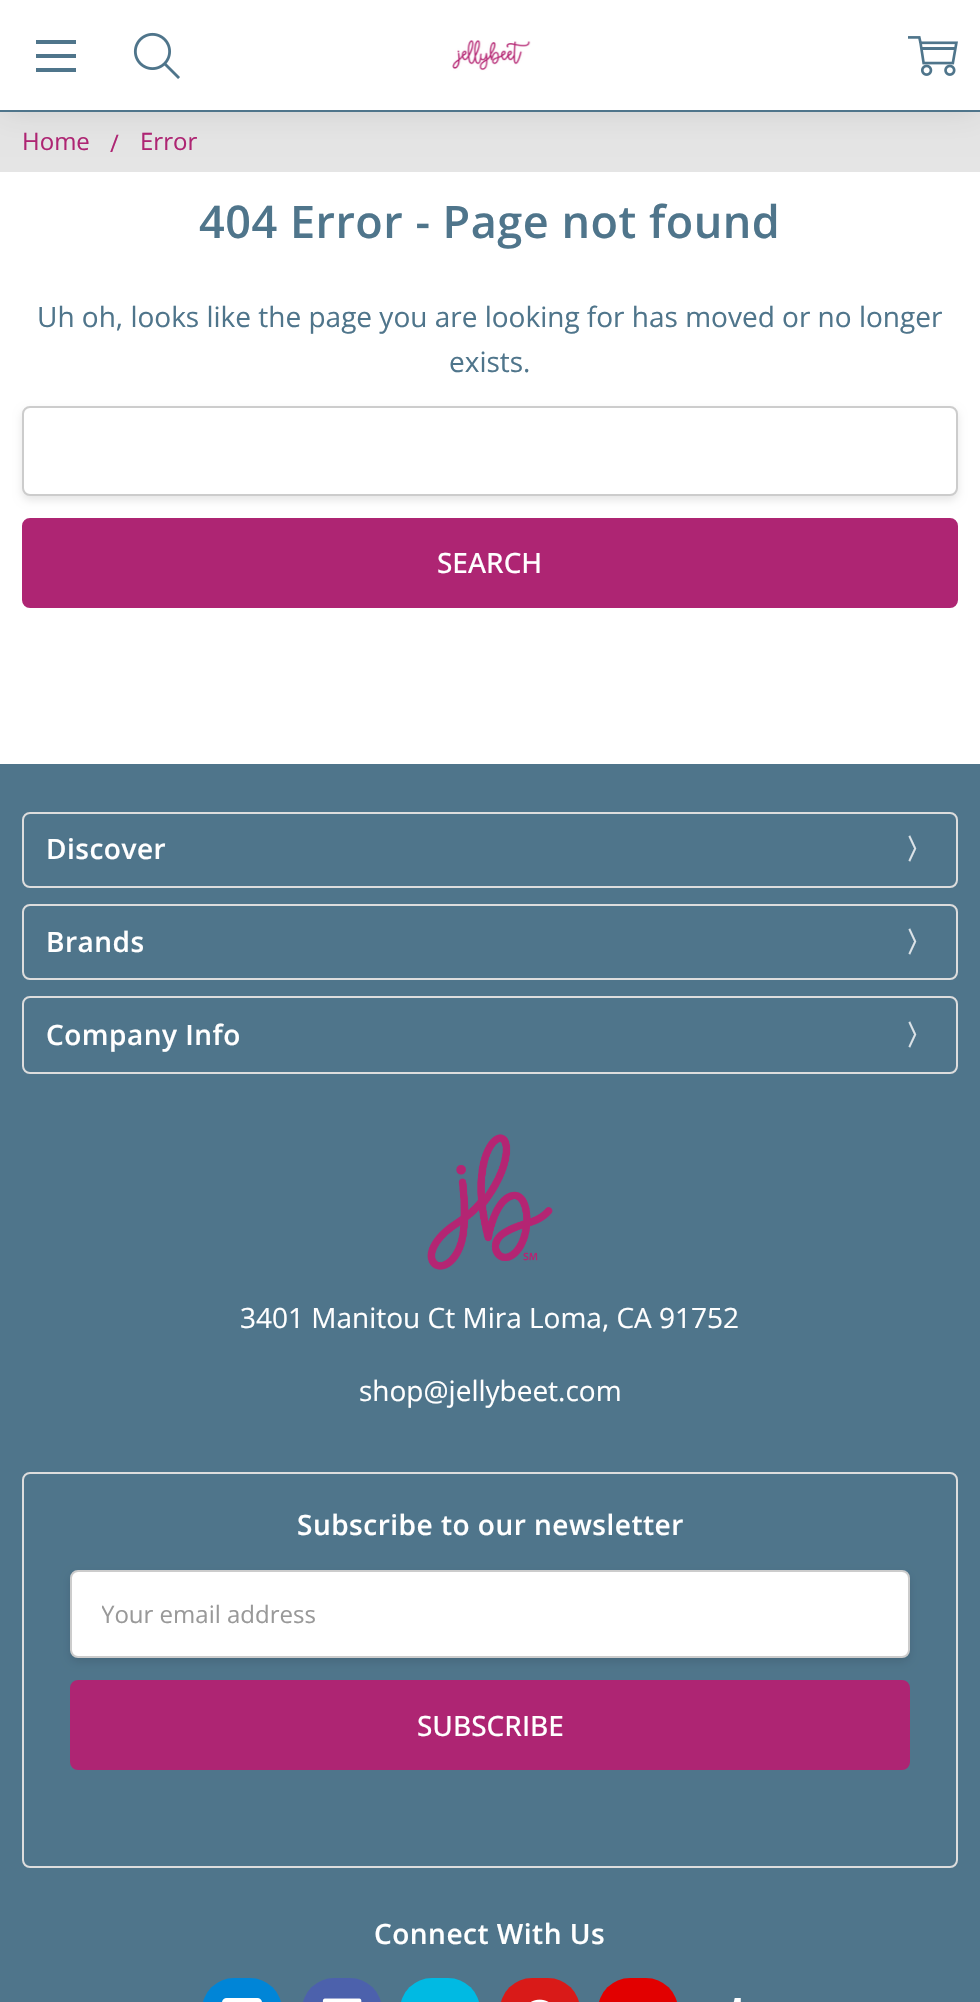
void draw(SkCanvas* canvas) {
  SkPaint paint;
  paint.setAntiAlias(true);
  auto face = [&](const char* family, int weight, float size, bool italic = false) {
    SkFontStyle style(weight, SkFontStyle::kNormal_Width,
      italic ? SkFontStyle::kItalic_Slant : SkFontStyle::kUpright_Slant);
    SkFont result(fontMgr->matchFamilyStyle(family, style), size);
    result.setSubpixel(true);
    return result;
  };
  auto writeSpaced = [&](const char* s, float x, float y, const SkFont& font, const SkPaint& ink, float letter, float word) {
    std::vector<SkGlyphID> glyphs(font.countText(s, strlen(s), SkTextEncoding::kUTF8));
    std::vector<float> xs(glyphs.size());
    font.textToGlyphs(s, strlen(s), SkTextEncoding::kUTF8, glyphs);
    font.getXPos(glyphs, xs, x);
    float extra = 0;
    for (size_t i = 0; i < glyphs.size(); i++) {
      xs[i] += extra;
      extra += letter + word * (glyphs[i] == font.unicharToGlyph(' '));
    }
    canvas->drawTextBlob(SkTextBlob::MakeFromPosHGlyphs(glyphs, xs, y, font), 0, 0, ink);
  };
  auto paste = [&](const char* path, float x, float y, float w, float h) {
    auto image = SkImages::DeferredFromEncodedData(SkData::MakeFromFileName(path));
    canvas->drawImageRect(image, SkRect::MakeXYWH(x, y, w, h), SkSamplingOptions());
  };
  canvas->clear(0xffffffff);
  paint.setColor(0xffe5e5e5);
  canvas->drawRect(SkRect::MakeXYWH(0, 112, 980, 60), paint);
  paint.setColor(0x1a000000);
  paint.setMaskFilter(SkMaskFilter::MakeBlur(kNormal_SkBlurStyle, 15));
  canvas->drawRect(SkRect::MakeXYWH(0, 0, 980, 112), paint);
  paint.setMaskFilter(nullptr);
  {
    const struct { float x, y, w, h; SkColor color; } items[] = {
      {0, 0, 980, 110, 0xffffffff},
      {0, 110, 980, 2, 0xff4f758b},
      {36, 54, 40, 4, 0xff4f758b},
      {36, 40, 40, 4, 0xff4f758b},
      {36, 68, 40, 4, 0xff4f758b},
    };
    for (auto [x, y, w, h, color] : items) {
      paint.setColor(color);
      canvas->drawRect(SkRect::MakeXYWH(x, y, w, h), paint);
    }
  }
  paste("img/1.png", 133, 32, 47, 47);
  paste("img/2.png", 908, 36, 50, 40);
  paste("img/3.png", 452, 40, 79, 31);
  paint.setColor(0x1a000000);
  paint.setMaskFilter(SkMaskFilter::MakeBlur(kNormal_SkBlurStyle, 4));
  canvas->drawRoundRect(SkRect::MakeXYWH(22, 410, 936, 90), 8, 8, paint);
  paint.setMaskFilter(nullptr);
  paint.setColor(0xffffffff);
  canvas->drawRoundRect(SkRect::MakeXYWH(23, 407, 934, 88), 7, 7, paint);
  paint.setStroke(true);
  paint.setStrokeWidth(2);
  paint.setColor(0xffcccccc);
  canvas->drawRoundRect(SkRect::MakeXYWH(23, 407, 934, 88), 7, 7, paint);
  paint.setStroke(false);
  paint.setColor(0xffae2573);
  canvas->drawRoundRect(SkRect::MakeXYWH(23, 519, 934, 88), 7, 7, paint);
  paint.setStroke(true);
  canvas->drawRoundRect(SkRect::MakeXYWH(23, 519, 934, 88), 7, 7, paint);
  paint.setStroke(false);
  paint.setColor(0xff4f758b);
  canvas->drawRect(SkRect::MakeXYWH(0, 764, 980, 1238), paint);
  paint.setStroke(true);
  paint.setColor(0xffdddddd);
  canvas->drawRoundRect(SkRect::MakeXYWH(23, 813, 934, 74), 7, 7, paint);
  canvas->drawRoundRect(SkRect::MakeXYWH(23, 905, 934, 74), 7, 7, paint);
  canvas->drawRoundRect(SkRect::MakeXYWH(23, 997, 934, 76), 7, 7, paint);
  paste("img/4.png", 427, 1134, 126, 136);
  canvas->drawRoundRect(SkRect::MakeXYWH(23, 1473, 934, 394), 7, 7, paint);
  paint.setStroke(false);
  paint.setColor(0x1a000000);
  paint.setMaskFilter(SkMaskFilter::MakeBlur(kNormal_SkBlurStyle, 4));
  canvas->drawRoundRect(SkRect::MakeXYWH(70, 1574, 840, 88), 8, 8, paint);
  paint.setMaskFilter(nullptr);
  paint.setColor(0xffffffff);
  canvas->drawRoundRect(SkRect::MakeXYWH(71, 1571, 838, 86), 7, 7, paint);
  paint.setStroke(true);
  paint.setColor(0xffcccccc);
  canvas->drawRoundRect(SkRect::MakeXYWH(71, 1571, 838, 86), 7, 7, paint);
  paint.setStroke(false);
  paint.setColor(0xffae2573);
  canvas->drawRoundRect(SkRect::MakeXYWH(71, 1681, 838, 88), 7, 7, paint);
  paint.setStroke(true);
  canvas->drawRoundRect(SkRect::MakeXYWH(71, 1681, 838, 88), 7, 7, paint);
  paint.setStroke(false);
  paint.setColor(0xff0085d7);
  canvas->drawRoundRect(SkRect::MakeXYWH(202, 1978, 80, 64), 40, 40, paint);
  paste("img/5.png", 222, 1998, 40, 4);
  paint.setColor(0xff4c61ac);
  canvas->drawRoundRect(SkRect::MakeXYWH(302, 1978, 80, 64), 40, 40, paint);
  paste("img/6.png", 322, 1998, 40, 4);
  paint.setColor(0xff00bae3);
  canvas->drawRoundRect(SkRect::MakeXYWH(400, 1978, 80, 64), 40, 40, paint);
  paint.setColor(0xffd91a18);
  canvas->drawRoundRect(SkRect::MakeXYWH(500, 1978, 80, 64), 40, 40, paint);
  paste("img/7.png", 531, 1999, 18, 3);
  paint.setColor(0xffe20000);
  canvas->drawRoundRect(SkRect::MakeXYWH(598, 1978, 80, 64), 40, 40, paint);
  paste("img/8.png", 733, 1998, 8, 4);
  auto f0 = face("Open Sans", 400, 24);
  paint.setColor(0xffae2573);
  {
    const struct { const char* s; float x, y; } items[] = {
      {"Home", 22, 150},
      {"/", 110, 152},
      {"Error", 140, 150},
    };
    for (auto [s, x, y] : items) {
      canvas->drawString(s, x, y, f0, paint);
    }
  }
  auto f1 = face("Open Sans", 600, 45);
  paint.setColor(0xff4f758b);
  writeSpaced("404 Error - Page not found", 199, 238, f1, paint, 0.5f, 0);
  auto f2 = face("Open Sans", 400, 28);
  canvas->drawString("Uh oh, looks like the page you are looking for has moved or no longer", 37, 327, f2, paint);
  canvas->drawString("exists.", 449, 372, f2, paint);
  auto f3 = face("Open Sans", 500, 28);
  paint.setColor(0xffffffff);
  canvas->drawString("SEARCH", 437, 573, f3, paint);
  auto f4 = face("Open Sans", 600, 28);
  writeSpaced("Discover", 46, 859, f4, paint, 0.5f, 0);
  auto f5 = face("WenQuanYi Zen Hei", 700, 28);
  paint.setColor(0xffdce3e8);
  writeSpaced("〉", 905, 859, f5, paint, 0.5f, 0);
  paint.setColor(0xffffffff);
  writeSpaced("Brands", 46, 952, f4, paint, 0.5f, 0);
  paint.setColor(0xffdce3e8);
  writeSpaced("〉", 905, 952, f5, paint, 0.5f, 0);
  paint.setColor(0xffffffff);
  writeSpaced("Company Info", 46, 1045, f4, paint, 0.5f, 0);
  paint.setColor(0xffdce3e8);
  writeSpaced("〉", 905, 1045, f5, paint, 0.5f, 0);
  paint.setColor(0xffffffff);
  canvas->drawString("3401 Manitou Ct Mira Loma, CA 91752", 240, 1328, f2, paint);
  canvas->drawString("shop@jellybeet.com", 359, 1401, f2, paint);
  writeSpaced("Subscribe to our newsletter", 297, 1535, f4, paint, 0.5f, 0);
  canvas->save();
  canvas->clipRect(SkRect::MakeXYWH(102, 1598, 776, 34));
  paint.setColor(0xff999999);
  canvas->drawString("Your email address", 101, 1623, f0, paint);
  canvas->restore();
  paint.setColor(0xffffffff);
  canvas->drawString("SUBSCRIBE", 417, 1736, f3, paint);
  writeSpaced("Connect With Us", 374, 1944, f4, paint, 0.5f, 0);
}
